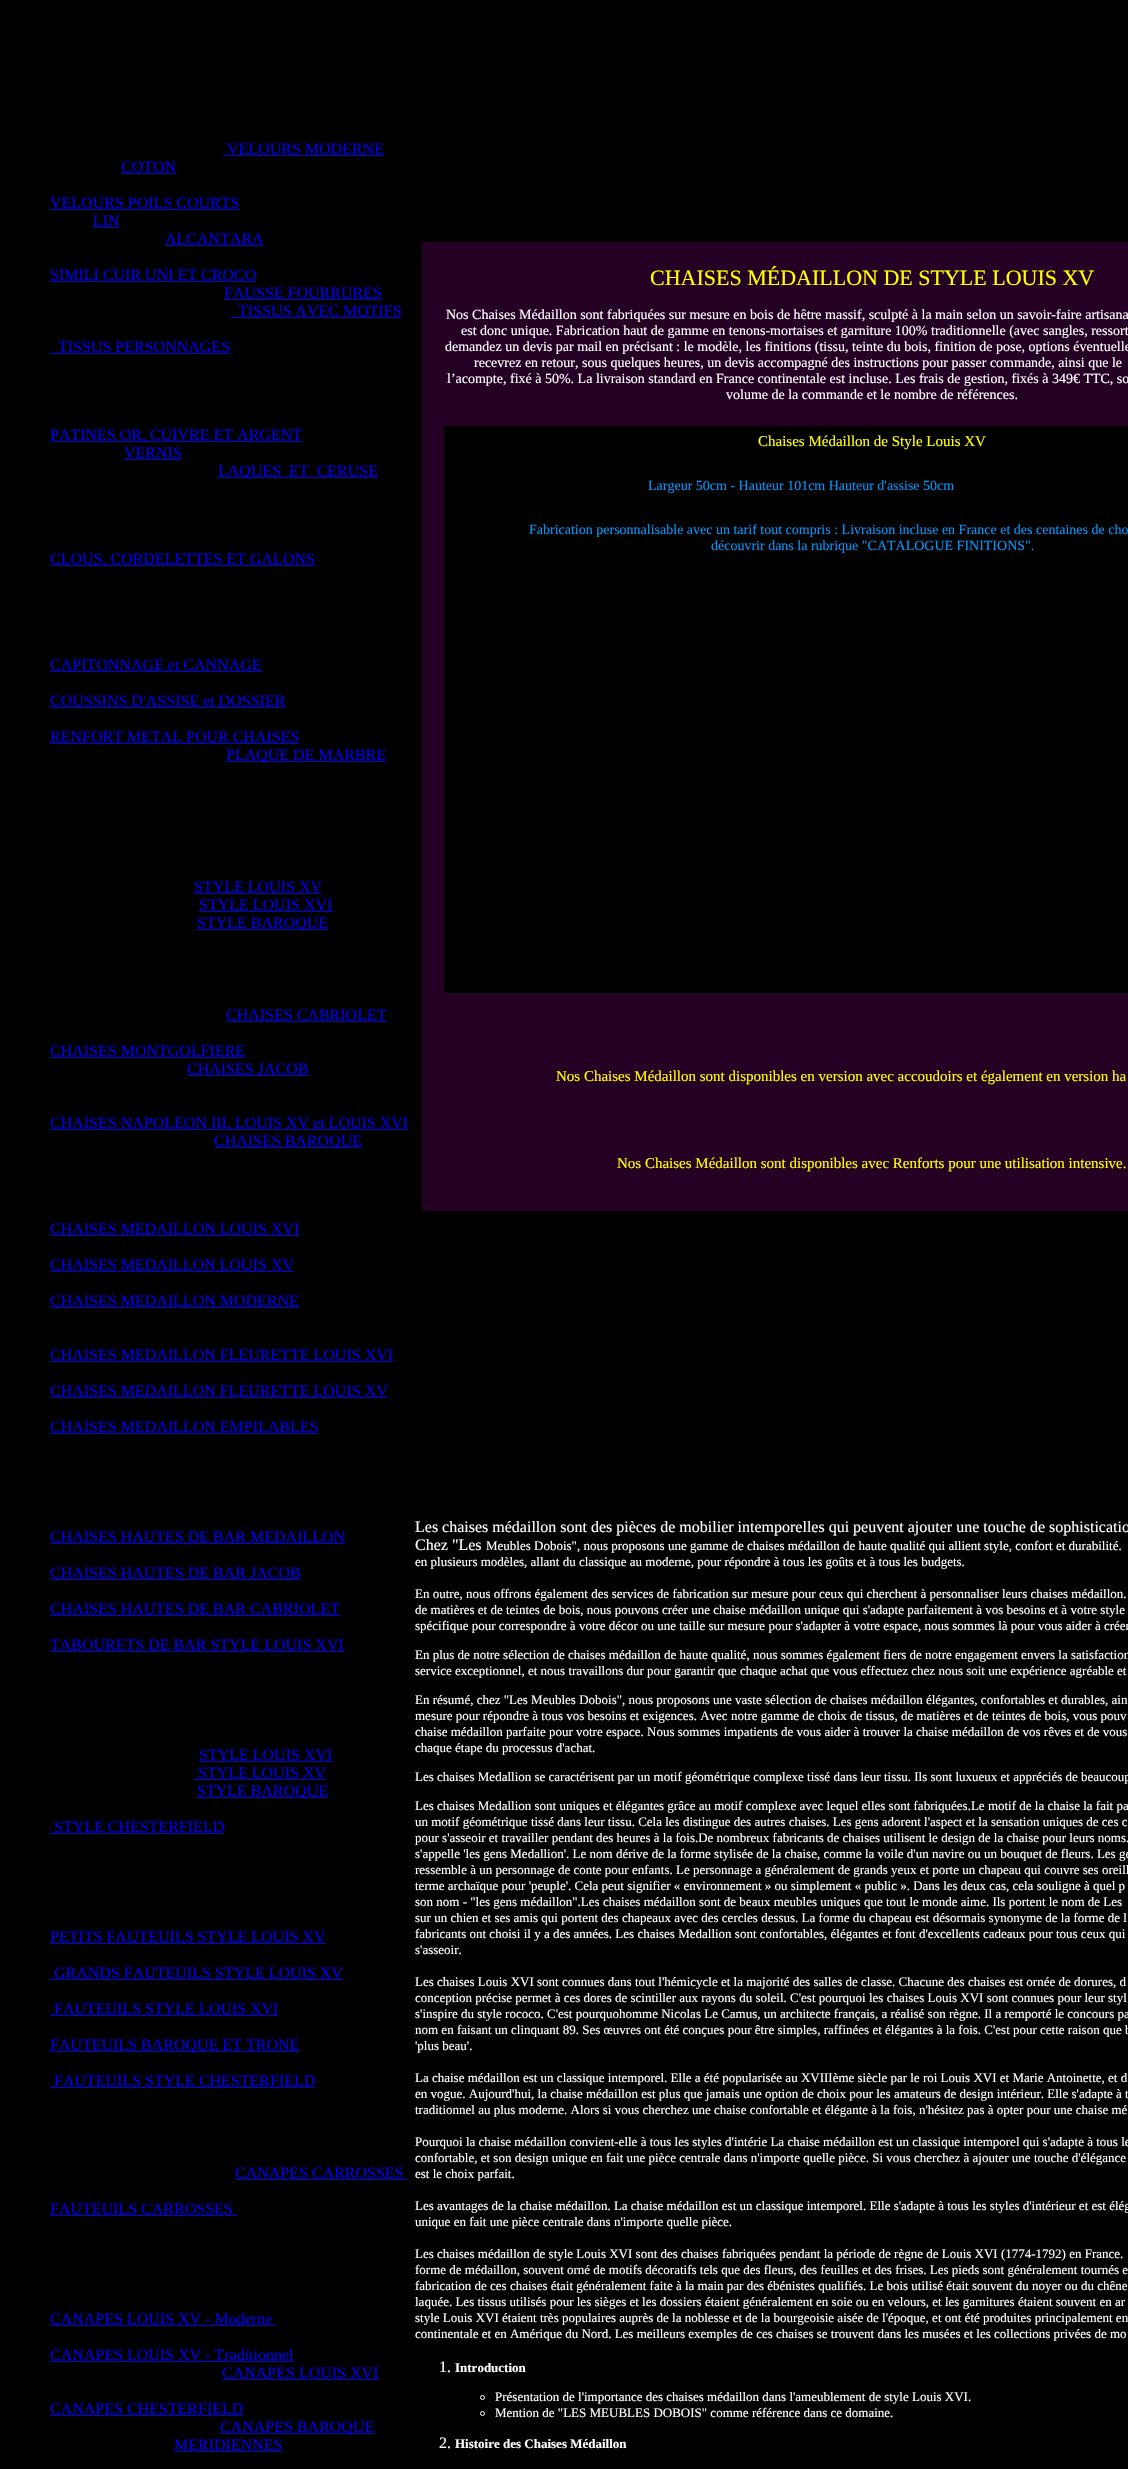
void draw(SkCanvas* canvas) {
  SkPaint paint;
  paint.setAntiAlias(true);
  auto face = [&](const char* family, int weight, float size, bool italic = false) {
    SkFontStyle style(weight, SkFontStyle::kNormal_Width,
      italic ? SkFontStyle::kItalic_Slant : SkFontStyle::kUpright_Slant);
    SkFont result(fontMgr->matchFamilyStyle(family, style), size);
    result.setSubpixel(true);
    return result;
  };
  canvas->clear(0xff000000);
  {
    const struct { float x, y, w, h; SkColor color; } items[] = {
      {223, 155, 161, 1, 0xff0000ee},
      {121, 173, 55, 1, 0xff0000ee},
      {50, 209, 189, 1, 0xff0000ee},
      {93, 227, 26, 1, 0xff0000ee},
      {165, 245, 98, 1, 0xff0000ee},
      {50, 281, 206, 1, 0xff0000ee},
      {224, 299, 158, 1, 0xff0000ee},
      {230, 317, 171, 1, 0xff0000ee},
      {50, 353, 180, 1, 0xff0000ee},
      {50, 441, 252, 1, 0xff0000ee},
      {124, 459, 58, 1, 0xff0000ee},
      {218, 477, 160, 1, 0xff0000ee},
      {50, 565, 265, 1, 0xff0000ee},
      {50, 671, 212, 1, 0xff0000ee},
      {50, 707, 235, 1, 0xff0000ee},
      {50, 743, 249, 1, 0xff0000ee},
      {226, 761, 160, 1, 0xff0000ee},
      {194, 893, 128, 1, 0xff0000ee},
      {199, 911, 134, 1, 0xff0000ee},
      {197, 929, 131, 1, 0xff0000ee},
      {226, 1021, 161, 1, 0xff0000ee},
      {50, 1057, 195, 1, 0xff0000ee},
      {187, 1075, 122, 1, 0xff0000ee},
      {50, 1129, 358, 1, 0xff0000ee},
      {214, 1147, 148, 1, 0xff0000ee},
      {50, 1235, 249, 1, 0xff0000ee},
      {50, 1271, 244, 1, 0xff0000ee},
      {50, 1307, 249, 1, 0xff0000ee},
      {50, 1361, 343, 1, 0xff0000ee},
      {50, 1397, 338, 1, 0xff0000ee},
      {50, 1433, 268, 1, 0xff0000ee},
      {50, 1543, 295, 1, 0xff0000ee},
      {50, 1579, 251, 1, 0xff0000ee},
      {50, 1615, 290, 1, 0xff0000ee},
      {50, 1651, 294, 1, 0xff0000ee},
      {199, 1761, 134, 1, 0xff0000ee},
      {194, 1779, 132, 1, 0xff0000ee},
      {197, 1797, 131, 1, 0xff0000ee},
      {50, 1833, 174, 1, 0xff0000ee},
      {50, 1943, 276, 1, 0xff0000ee},
      {50, 1979, 293, 1, 0xff0000ee},
      {50, 2015, 228, 1, 0xff0000ee},
      {50, 2051, 249, 1, 0xff0000ee},
      {50, 2087, 265, 1, 0xff0000ee},
      {235, 2179, 172, 1, 0xff0000ee},
      {50, 2215, 187, 1, 0xff0000ee},
      {50, 2325, 226, 1, 0xff0000ee},
      {50, 2361, 244, 1, 0xff0000ee},
      {222, 2379, 157, 1, 0xff0000ee},
      {50, 2415, 193, 1, 0xff0000ee},
      {220, 2433, 155, 1, 0xff0000ee},
      {174, 2451, 109, 1, 0xff0000ee},
      {422, 242, 706, 969, 0xff240024},
      {444, 426, 684, 567, 0xff000000},
    };
    for (auto [x, y, w, h, color] : items) {
      paint.setColor(color);
      canvas->drawRect(SkRect::MakeXYWH(x, y, w, h), paint);
    }
  }
  paint.setStroke(true);
  paint.setStrokeWidth(1);
  paint.setColor(0xffffffff);
  canvas->drawCircle(482.5f, 2397.5f, 2, paint);
  canvas->drawCircle(482.5f, 2413.5f, 2, paint);
  auto f0 = face("Liberation Serif", 400, 16);
  paint.setStroke(false);
  paint.setColor(0xff0000ee);
  {
    const struct { const char* s; float x, y; } items[] = {
      {"VELOURS MODERNE", 227, 154},
      {"COTON", 121, 172},
      {"VELOURS POILS COURTS", 50, 208},
      {"LIN", 93, 226},
      {"ALCANTARA", 165, 244},
      {"SIMILI CUIR UNI ET CROCO", 50, 280},
      {"FAUSSE FOURRURES", 224, 298},
      {"TISSUS AVEC MOTIFS", 238, 316},
      {"TISSUS PERSONNAGES", 58, 352},
      {"PATINES OR, CUIVRE ET ARGENT", 50, 440},
      {"VERNIS", 124, 458},
      {"LAQUES  ET  CERUSE", 218, 476},
      {"CLOUS, CORDELETTES ET GALONS", 50, 564},
      {"CAPITONNAGE et CANNAGE", 50, 670},
      {"COUSSINS D'ASSISE et DOSSIER", 50, 706},
      {"RENFORT METAL POUR CHAISES", 50, 742},
      {"PLAQUE DE MARBRE", 226, 760},
      {"STYLE LOUIS XV", 194, 892},
      {"STYLE LOUIS XVI", 199, 910},
      {"STYLE BAROQUE", 197, 928},
      {"CHAISES CABRIOLET", 226, 1020},
      {"CHAISES MONTGOLFIERE", 50, 1056},
      {"CHAISES JACOB", 187, 1074},
      {"CHAISES NAPOLEON III, LOUIS XV et LOUIS XVI", 50, 1128},
      {"CHAISES BAROQUE", 214, 1146},
      {"CHAISES MEDAILLON LOUIS XVI", 50, 1234},
      {"CHAISES MEDAILLON LOUIS XV", 50, 1270},
      {"CHAISES MEDAILLON MODERNE", 50, 1306},
      {"CHAISES MEDAILLON FLEURETTE LOUIS XVI", 50, 1360},
      {"CHAISES MEDAILLON FLEURETTE LOUIS XV", 50, 1396},
      {"CHAISES MEDAILLON EMPILABLES", 50, 1432},
      {"CHAISES HAUTES DE BAR MEDAILLON", 50, 1542},
      {"CHAISES HAUTES DE BAR JACOB", 50, 1578},
      {"CHAISES HAUTES DE BAR CABRIOLET", 50, 1614},
      {"TABOURETS DE BAR STYLE LOUIS XVI", 50, 1650},
      {"STYLE LOUIS XVI", 199, 1760},
      {"STYLE LOUIS XV", 198, 1778},
      {"STYLE BAROQUE", 197, 1796},
      {"STYLE CHESTERFIELD", 54, 1832},
      {"PETITS FAUTEUILS STYLE LOUIS XV", 50, 1942},
      {"GRANDS FAUTEUILS STYLE LOUIS XV", 54, 1978},
      {"FAUTEUILS STYLE LOUIS XVI", 54, 2014},
      {"FAUTEUILS BAROQUE ET TRONE", 50, 2050},
      {"FAUTEUILS STYLE CHESTERFIELD", 54, 2086},
      {"CANAPES CARROSSES", 235, 2178},
      {"FAUTEUILS CARROSSES", 50, 2214},
      {"CANAPES LOUIS XV - Moderne", 50, 2324},
      {"CANAPES LOUIS XV - Traditionnel", 50, 2360},
      {"CANAPES LOUIS XVI", 222, 2378},
      {"CANAPES CHESTERFIELD", 50, 2414},
      {"CANAPES BAROQUE", 220, 2432},
      {"MERIDIENNES", 174, 2450},
    };
    for (auto [s, x, y] : items) {
      canvas->drawString(s, x, y, f0, paint);
    }
  }
  auto f1 = face("Liberation Serif", 400, 22);
  paint.setColor(0xffffff00);
  canvas->drawString("CHAISES MÉDAILLON DE STYLE LOUIS XV", 650, 285, f1, paint);
  auto f2 = face("Liberation Serif", 400, 14);
  paint.setColor(0xffffffff);
  {
    const struct { const char* s; float x, y; } items[] = {
      {"Nos Chaises Médaillon sont fabriquées sur mesure en bois de hêtre massif, sculpté à la main selon un savoir-faire artisana", 446, 319},
      {"est donc unique. Fabrication haut de gamme en tenons-mortaises et garniture 100% traditionnelle (avec sangles, ressort", 461, 335},
      {"demandez un devis par mail en précisant : le modèle, les finitions (tissu, teinte du bois, finition de pose, options éventuelle", 445, 351},
      {"recevrez en retour, sous quelques heures, un devis accompagné des instructions pour passer commande, ainsi que le", 474, 367},
      {"l’acompte, fixé à 50%. La livraison standard en France continentale est incluse. Les frais de gestion, fixés à 349€ TTC, so", 447, 383},
      {"volume de la commande et le nombre de références.", 726, 399},
    };
    for (auto [s, x, y] : items) {
      canvas->drawString(s, x, y, f2, paint);
    }
  }
  auto f3 = face("Liberation Serif", 400, 15);
  paint.setColor(0xffffff00);
  canvas->drawString("Chaises Médaillon de Style Louis XV", 758, 446, f3, paint);
  paint.setColor(0xff0099ff);
  {
    const struct { const char* s; float x, y; } items[] = {
      {"Largeur 50cm - Hauteur 101cm Hauteur d'assise 50cm", 648, 490},
      {"Fabrication personnalisable avec un tarif tout compris : Livraison incluse en France et des centaines de cho", 529, 534},
      {"découvrir dans la rubrique \"CATALOGUE FINITIONS\".", 711, 550},
    };
    for (auto [s, x, y] : items) {
      canvas->drawString(s, x, y, f2, paint);
    }
  }
  paint.setColor(0xffffff00);
  canvas->drawString("Nos Chaises Médaillon sont disponibles en version avec accoudoirs et également en version ha", 556, 1081, f3, paint);
  canvas->drawString("Nos Chaises Médaillon sont disponibles avec Renforts pour une utilisation intensive.", 617, 1168, f3, paint);
  paint.setColor(0xffffffff);
  canvas->drawString("Les chaises médaillon sont des pièces de mobilier intemporelles qui peuvent ajouter une touche de sophisticatio", 415, 1532, f0, paint);
  canvas->drawString("Chez \"Les", 415, 1550, f0, paint);
  auto f4 = face("Liberation Serif", 400, 13);
  {
    const struct { const char* s; float x, y; } items[] = {
      {"Meubles Dobois\", nous proposons une gamme de chaises médaillon de haute qualité qui allient style, confort et durabilité.", 486, 1550},
      {"en plusieurs modèles, allant du classique au moderne, pour répondre à tous les goûts et à tous les budgets.", 415, 1566},
      {"En outre, nous offrons également des services de fabrication sur mesure pour ceux qui cherchent à personnaliser leurs chaises médaillon.", 415, 1598},
      {"de matières et de teintes de bois, nous pouvons créer une chaise médaillon unique qui s'adapte parfaitement à vos besoins et à votre style", 415, 1614},
      {"spécifique pour correspondre à votre décor ou une taille sur mesure pour s'adapter à votre espace, nous sommes là pour vous aider à créer", 415, 1630},
      {"En plus de notre sélection de chaises médaillon de haute qualité, nous sommes également fiers de notre engagement envers la satisfaction", 415, 1659},
      {"service exceptionnel, et nous travaillons dur pour garantir que chaque achat que vous effectuez chez nous soit une expérience agréable et", 415, 1675},
      {"En résumé, chez \"Les Meubles Dobois\", nous proposons une vaste sélection de chaises médaillon élégantes, confortables et durables, ain", 415, 1704},
      {"mesure pour répondre à tous vos besoins et exigences. Avec notre gamme de choix de tissus, de matières et de teintes de bois, vous pouv", 415, 1720},
      {"chaise médaillon parfaite pour votre espace. Nous sommes impatients de vous aider à trouver la chaise médaillon de vos rêves et de vous", 415, 1736},
      {"chaque étape du processus d'achat.", 415, 1752},
      {"Les chaises Medallion se caractérisent par un motif géométrique complexe tissé dans leur tissu. Ils sont luxueux et appréciés de beaucoup", 415, 1781},
      {"Les chaises Medallion sont uniques et élégantes grâce au motif complexe avec lequel elles sont fabriquées.Le motif de la chaise la fait pa", 415, 1810},
      {"un motif géométrique tissé dans leur tissu. Cela les distingue des autres chaises. Les gens adorent l'aspect et la sensation uniques de ces c", 415, 1826},
      {"pour s'asseoir et travailler pendant des heures à la fois.De nombreux fabricants de chaises utilisent le design de la chaise pour leurs noms.", 415, 1842},
      {"s'appelle 'les gens Medallion'. Le nom dérive de la forme stylisée de la chaise, comme la voile d'un navire ou un bouquet de fleurs. Les ge", 415, 1858},
      {"ressemble à un personnage de conte pour enfants. Le personnage a généralement de grands yeux et porte un chapeau qui couvre ses oreill", 415, 1874},
      {"terme archaïque pour 'peuple'. Cela peut signifier « environnement » ou simplement « public ». Dans les deux cas, cela souligne à quel p", 415, 1890},
      {"son nom - \"les gens médaillon\".Les chaises médaillon sont de beaux meubles uniques que tout le monde aime. Ils portent le nom de Les", 415, 1906},
      {"sur un chien et ses amis qui portent des chapeaux avec des cercles dessus. La forme du chapeau est désormais synonyme de la forme de l", 415, 1922},
      {"fabricants ont choisi il y a des années. Les chaises Medallion sont confortables, élégantes et font d'excellents cadeaux pour tous ceux qui", 415, 1938},
      {"s'asseoir.", 415, 1954},
      {"Les chaises Louis XVI sont connues dans tout l'hémicycle et la majorité des salles de classe. Chacune des chaises est ornée de dorures, d", 415, 1986},
      {"conception précise permet à ces dores de scintiller aux rayons du soleil. C'est pourquoi les chaises Louis XVI sont connues pour leur styl", 415, 2002},
      {"s'inspire du style rococo. C'est pourquohomme Nicolas Le Camus, un architecte français, a réalisé son règne. Il a remporté le concours pa", 415, 2018},
      {"nom en faisant un clinquant 89. Ses œuvres ont été conçues pour être simples, raffinées et élégantes à la fois. C'est pour cette raison que b", 415, 2034},
      {"'plus beau'.", 415, 2050},
      {"La chaise médaillon est un classique intemporel. Elle a été popularisée au XVIIIème siècle par le roi Louis XVI et Marie Antoinette, et d", 415, 2082},
      {"en vogue. Aujourd'hui, la chaise médaillon est plus que jamais une option de choix pour les amateurs de design intérieur. Elle s'adapte à t", 415, 2098},
      {"traditionnel au plus moderne. Alors si vous cherchez une chaise confortable et élégante à la fois, n'hésitez pas à opter pour une chaise mé", 415, 2114},
      {"Pourquoi la chaise médaillon convient-elle à tous les styles d'intérie La chaise médaillon est un classique intemporel qui s'adapte à tous le", 415, 2146},
      {"confortable, et son design unique en fait une pièce centrale dans n'importe quelle pièce. Si vous cherchez à ajouter une touche d'élégance", 415, 2162},
      {"est le choix parfait.", 415, 2178},
      {"Les avantages de la chaise médaillon. La chaise médaillon est un classique intemporel. Elle s'adapte à tous les styles d'intérieur et est élég", 415, 2210},
      {"unique en fait une pièce centrale dans n'importe quelle pièce.", 415, 2226},
      {"Les chaises médaillon de style Louis XVI sont des chaises fabriquées pendant la période de règne de Louis XVI (1774-1792) en France.", 415, 2258},
      {"forme de médaillon, souvent orné de motifs décoratifs tels que des fleurs, des feuilles et des frises. Les pieds sont généralement tournés e", 415, 2274},
      {"fabrication de ces chaises était généralement faite à la main par des ébénistes qualifiés. Le bois utilisé était souvent du noyer ou du chêne", 415, 2290},
      {"laquée. Les tissus utilisés pour les sièges et les dossiers étaient généralement en soie ou en velours, et les garnitures étaient souvent en ar", 415, 2306},
      {"style Louis XVI étaient très populaires auprès de la noblesse et de la bourgeoisie aisée de l'époque, et ont été produites principalement en", 415, 2322},
      {"continentale et en Amérique du Nord. Les meilleurs exemples de ces chaises se trouvent dans les musées et les collections privées de mo", 415, 2338},
    };
    for (auto [s, x, y] : items) {
      canvas->drawString(s, x, y, f4, paint);
    }
  }
  canvas->drawString("1.", 439, 2372, f0, paint);
  auto f5 = face("Liberation Serif", 700, 13);
  canvas->drawString("Introduction", 455, 2372, f5, paint);
  canvas->drawString("Présentation de l'importance des chaises médaillon dans l'ameublement de style Louis XVI.", 495, 2401, f4, paint);
  canvas->drawString("Mention de \"LES MEUBLES DOBOIS\" comme référence dans ce domaine.", 495, 2417, f4, paint);
  canvas->drawString("2.", 439, 2448, f0, paint);
  canvas->drawString("Histoire des Chaises Médaillon", 455, 2448, f5, paint);
}
